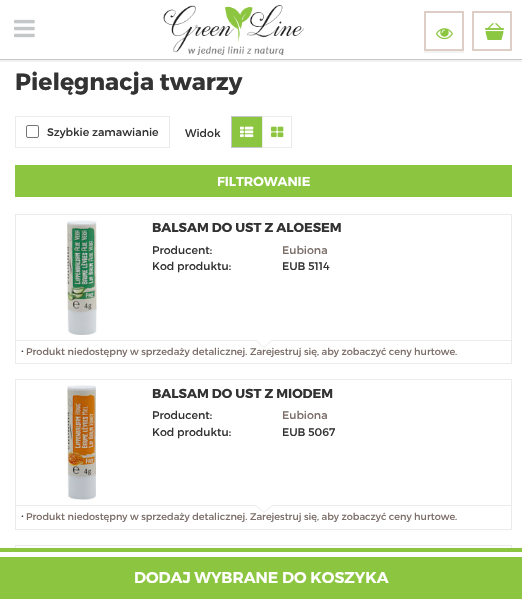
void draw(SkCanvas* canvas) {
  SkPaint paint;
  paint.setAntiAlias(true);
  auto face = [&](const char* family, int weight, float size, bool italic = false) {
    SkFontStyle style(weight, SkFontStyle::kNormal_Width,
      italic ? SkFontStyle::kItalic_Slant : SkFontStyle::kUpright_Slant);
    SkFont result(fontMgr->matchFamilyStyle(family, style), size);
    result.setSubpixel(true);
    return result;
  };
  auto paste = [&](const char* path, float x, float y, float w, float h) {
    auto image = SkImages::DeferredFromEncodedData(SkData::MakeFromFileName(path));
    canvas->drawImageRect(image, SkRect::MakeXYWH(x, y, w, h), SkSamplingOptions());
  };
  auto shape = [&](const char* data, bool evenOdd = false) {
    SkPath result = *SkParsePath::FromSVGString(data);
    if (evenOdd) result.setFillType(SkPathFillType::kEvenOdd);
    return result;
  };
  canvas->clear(0xffffffff);
  paint.setColor(0xfff2f2f2);
  canvas->drawRect(SkRect::MakeXYWH(0, 60, 522, 2), paint);
  paint.setColor(0xffc4c7c8);
  canvas->drawRect(SkRect::MakeXYWH(0, 59, 522, 1), paint);
  paste("img/1.png", 14, 19, 21, 19);
  paste("img/2.png", 163, 5, 141, 50);
  paint.setColor(0xfff2f2f2);
  canvas->drawRect(SkRect::MakeXYWH(424, 51, 40, 2), paint);
  paint.setStroke(true);
  paint.setStrokeWidth(2);
  paint.setColor(0xffdecec6);
  canvas->drawRect(SkRect::MakeXYWH(425, 12, 38, 38), paint);
  paste("img/3.png", 436, 28, 17, 12);
  paste("img/4.png", 485, 23, 19, 17);
  canvas->drawRect(SkRect::MakeXYWH(473, 12, 38, 38), paint);
  paint.setStrokeWidth(1);
  paint.setColor(0xffebebeb);
  canvas->drawRect(SkRect::MakeXYWH(15.5f, 116.5f, 154, 31), paint);
  paint.setColor(0xff767676);
  canvas->drawRoundRect(SkRect::MakeXYWH(26.5f, 125.5f, 12, 12), 1.5f, 1.5f, paint);
  paint.setStroke(false);
  paint.setColor(0xff8cc540);
  canvas->drawRect(SkRect::MakeXYWH(231.5f, 116.5f, 31, 31), paint);
  paint.setStroke(true);
  paint.setColor(0xffc4c7c8);
  canvas->drawRect(SkRect::MakeXYWH(231.5f, 116.5f, 31, 31), paint);
  paste("img/5.png", 240, 126, 14, 12);
  paint.setColor(0xffebebeb);
  canvas->drawRect(SkRect::MakeXYWH(262.5f, 116.5f, 29, 31), paint);
  paste("img/6.png", 271, 126, 13, 12);
  paint.setStroke(false);
  paint.setColor(0xff8cc540);
  canvas->drawRect(SkRect::MakeXYWH(15, 165, 497, 32), paint);
  paint.setStroke(true);
  paint.setColor(0xffebebeb);
  canvas->drawRect(SkRect::MakeXYWH(15.5f, 214.5f, 496, 149), paint);
  paste("img/7.png", 67, 220, 30, 115);
  paint.setStroke(false);
  canvas->drawRect(SkRect::MakeXYWH(16, 340, 495, 1), paint);
  paint.setStroke(true);
  canvas->drawRect(SkRect::MakeXYWH(15.5f, 379.5f, 496, 150), paint);
  paste("img/8.png", 67, 385, 29, 115);
  paint.setStroke(false);
  canvas->drawRect(SkRect::MakeXYWH(16, 505, 495, 1), paint);
  paint.setStroke(true);
  canvas->drawRect(SkRect::MakeXYWH(15.5f, 545.5f, 496, 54), paint);
  paint.setStroke(false);
  {
    const struct { float x, y, w, h; SkColor color; } items[] = {
      {15, 552, 497, 5, 0xffffffff},
      {0, 548, 522, 4, 0xff8cc540},
      {0, 557, 522, 42, 0xff8cc540},
    };
    for (auto [x, y, w, h, color] : items) {
      paint.setColor(color);
      canvas->drawRect(SkRect::MakeXYWH(x, y, w, h), paint);
    }
  }
  auto f0 = face("Montserrat", 700, 23.5f);
  paint.setColor(0xff333333);
  canvas->drawString("Pielęgnacja twarzy", 15, 90, f0, paint);
  auto f1 = face("Montserrat", 400, 11);
  canvas->drawString("Szybkie zamawianie", 47, 136, f1, paint);
  canvas->drawString("Widok", 185, 137, f1, paint);
  auto f2 = face("Montserrat", 600, 13);
  paint.setColor(0xffffffff);
  canvas->drawString("FILTROWANIE", 217, 186, f2, paint);
  auto f3 = face("Montserrat", 700, 13);
  paint.setColor(0xff333333);
  canvas->drawString("BALSAM DO UST Z ALOESEM", 152, 232, f3, paint);
  canvas->drawString("Producent:", 152, 254, f1, paint);
  paint.setColor(0xff7b6e69);
  canvas->drawString("Eubiona", 282, 254, f1, paint);
  paint.setColor(0xff333333);
  canvas->drawString("Kod produktu:", 152, 270, f1, paint);
  canvas->drawString("EUB 5114", 282, 270, f1, paint);
  auto f4 = face("Montserrat", 400, 13);
  canvas->drawString(".", 21, 352, f4, paint);
  auto f5 = face("Montserrat", 400, 9.7f);
  paint.setColor(0xff7b6e69);
  canvas->drawString("Produkt niedostępny w sprzedaży detalicznej. Zarejestruj się, aby zobaczyć ceny hurtowe.", 26, 355, f5, paint);
  paint.setColor(0xffebebeb);
  canvas->drawPath(shape("M255 340H273L264 348Z"), paint);
  paint.setColor(0xffffffff);
  canvas->drawPath(shape("M256 340H272L264 347Z"), paint);
  paint.setColor(0xff333333);
  canvas->drawString("BALSAM DO UST Z MIODEM", 152, 398, f3, paint);
  canvas->drawString("Producent:", 152, 419, f1, paint);
  paint.setColor(0xff7b6e69);
  canvas->drawString("Eubiona", 282, 419, f1, paint);
  paint.setColor(0xff333333);
  canvas->drawString("Kod produktu:", 152, 436, f1, paint);
  canvas->drawString("EUB 5067", 282, 436, f1, paint);
  canvas->drawString(".", 21, 517, f4, paint);
  paint.setColor(0xff7b6e69);
  canvas->drawString("Produkt niedostępny w sprzedaży detalicznej. Zarejestruj się, aby zobaczyć ceny hurtowe.", 26, 520, f5, paint);
  paint.setColor(0xffebebeb);
  canvas->drawPath(shape("M255 505H273L264 513Z"), paint);
  paint.setColor(0xffffffff);
  canvas->drawPath(shape("M256 505H272L264 512Z"), paint);
  auto f6 = face("Montserrat", 600, 15.6f);
  canvas->drawString("DODAJ WYBRANE DO KOSZYKA", 134, 583, f6, paint);
}
